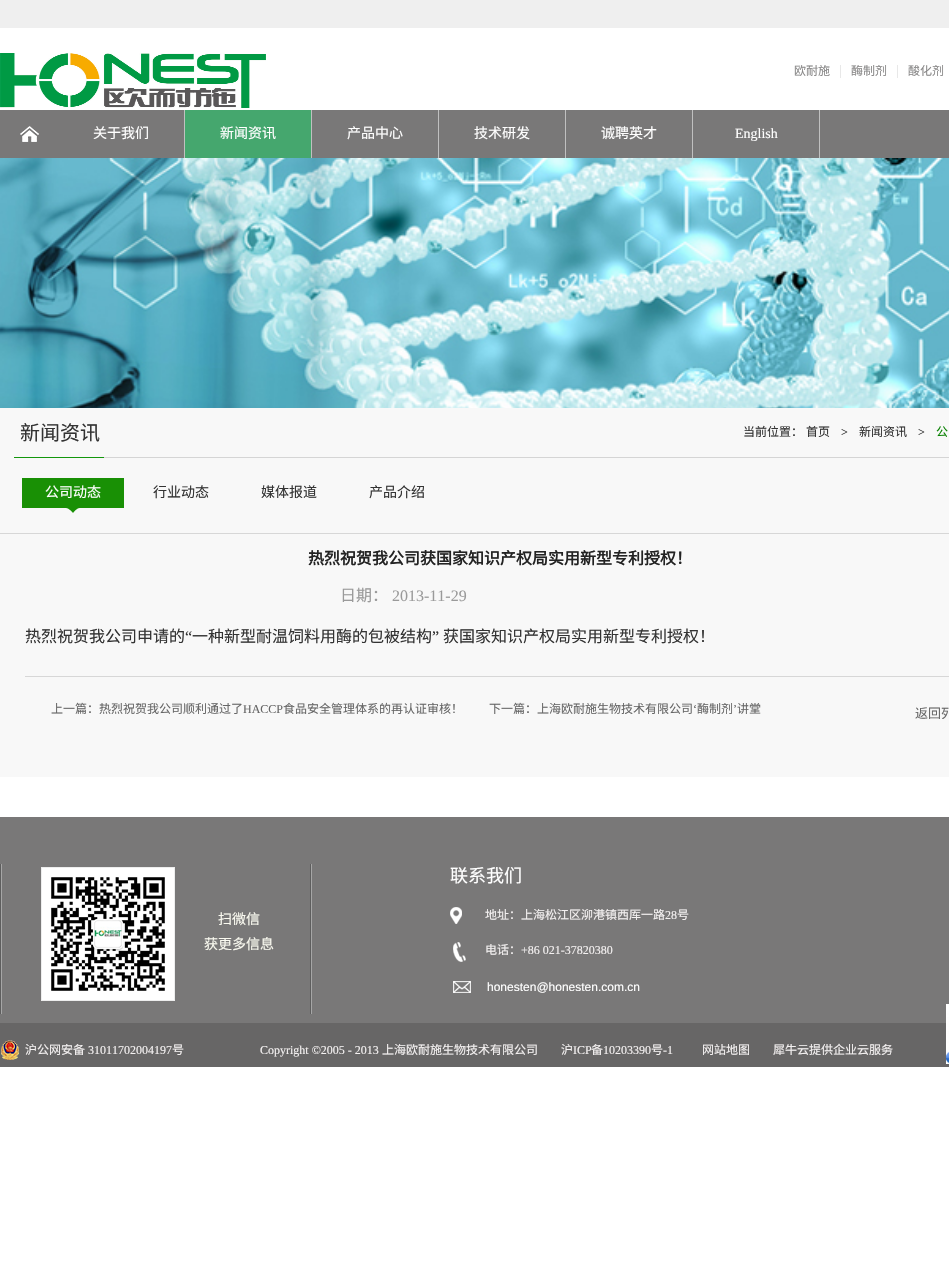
void draw(SkCanvas* canvas) {
  SkPaint paint;
  paint.setAntiAlias(true);
  auto face = [&](const char* family, int weight, float size, bool italic = false) {
    SkFontStyle style(weight, SkFontStyle::kNormal_Width,
      italic ? SkFontStyle::kItalic_Slant : SkFontStyle::kUpright_Slant);
    SkFont result(fontMgr->matchFamilyStyle(family, style), size);
    result.setSubpixel(true);
    return result;
  };
  auto paste = [&](const char* path, float x, float y, float w, float h) {
    auto image = SkImages::DeferredFromEncodedData(SkData::MakeFromFileName(path));
    canvas->drawImageRect(image, SkRect::MakeXYWH(x, y, w, h), SkSamplingOptions());
  };
  canvas->clear(0xffffffff);
  paint.setColor(0xffefefef);
  canvas->drawRect(SkRect::MakeXYWH(0, 0, 949, 28), paint);
  paste("img/1.png", 0, 53, 266, 55);
  {
    const struct { float x, y, w, h; SkColor color; } items[] = {
      {840, 65, 1, 13, 0xffe8e8e8},
      {897, 65, 1, 13, 0xffe8e8e8},
      {0, 110, 949, 48, 0xff797878},
    };
    for (auto [x, y, w, h, color] : items) {
      paint.setColor(color);
      canvas->drawRect(SkRect::MakeXYWH(x, y, w, h), paint);
    }
  }
  paste("img/2.png", 20, 126, 19, 16);
  {
    const struct { float x, y, w, h; SkColor color; } items[] = {
      {184, 110, 1, 48, 0xffc0c0c0},
      {185, 110, 126, 48, 0xff45a76e},
      {311, 110, 1, 48, 0xffc0c0c0},
      {438, 110, 1, 48, 0xffc0c0c0},
      {565, 110, 1, 48, 0xffc0c0c0},
      {692, 110, 1, 48, 0xffc0c0c0},
      {819, 110, 1, 48, 0xffc0c0c0},
    };
    for (auto [x, y, w, h, color] : items) {
      paint.setColor(color);
      canvas->drawRect(SkRect::MakeXYWH(x, y, w, h), paint);
    }
  }
  paste("img/3.png", 0, 158, 949, 250);
  paint.setColor(0xfff8f8f8);
  canvas->drawRect(SkRect::MakeXYWH(0, 408, 949, 125), paint);
  paint.setColor(0xffd7d7d7);
  canvas->drawRect(SkRect::MakeXYWH(0, 533, 949, 1), paint);
  paste("img/4.png", 14, 457, 935, 1);
  paste("img/5.png", 22, 478, 102, 35);
  paint.setColor(0xfff8f8f8);
  canvas->drawRect(SkRect::MakeXYWH(0, 534, 949, 243), paint);
  paint.setColor(0xffd7d7d7);
  canvas->drawRect(SkRect::MakeXYWH(25, 676, 924, 1), paint);
  paste("img/6.png", 0, 817, 949, 250);
  paste("img/7.png", 0, 864, 312, 150);
  paint.setStroke(true);
  paint.setStrokeWidth(1);
  paint.setColor(0xffededed);
  canvas->drawRect(SkRect::MakeXYWH(41.5f, 867.5f, 133, 133), paint);
  paste("img/8.png", 42, 868, 132, 132);
  paste("img/9.png", 450, 907, 21, 86);
  paste("img/10.png", 1, 1040, 18, 20);
  paste("img/11.png", 946, 1004, 3, 60);
  auto f0 = face("Noto Sans CJK SC", 400, 12);
  paint.setStroke(false);
  paint.setColor(0xff898888);
  {
    const struct { const char* s; float x, y; } items[] = {
      {"欧耐施", 794, 75},
      {"酶制剂", 851, 75},
      {"酸化剂", 908, 75},
    };
    for (auto [s, x, y] : items) {
      canvas->drawString(s, x, y, f0, paint);
    }
  }
  auto f1 = face("Noto Sans CJK SC", 400, 14);
  paint.setColor(0xffffffff);
  {
    const struct { const char* s; float x, y; } items[] = {
      {"关于我们", 93, 138},
      {"新闻资讯", 220, 138},
      {"产品中心", 347, 138},
      {"技术研发", 474, 138},
      {"诚聘英才", 601, 138},
    };
    for (auto [s, x, y] : items) {
      canvas->drawString(s, x, y, f1, paint);
    }
  }
  auto f2 = face("Liberation Serif", 400, 14);
  canvas->drawString("English", 735, 138, f2, paint);
  auto f3 = face("Noto Sans CJK SC", 400, 20);
  paint.setColor(0xff333333);
  canvas->drawString("新闻资讯", 20, 440, f3, paint);
  canvas->drawString("当前位置：", 743, 436, f0, paint);
  canvas->drawString("首页", 806, 436, f0, paint);
  auto f4 = face("Liberation Serif", 400, 12);
  canvas->drawString(">", 841, 436, f4, paint);
  canvas->drawString("新闻资讯", 859, 436, f0, paint);
  canvas->drawString(">", 918, 436, f4, paint);
  paint.setColor(0xff078100);
  canvas->drawString("公", 936, 436, f0, paint);
  paint.setColor(0xffffffff);
  canvas->drawString("公司动态", 45, 497, f1, paint);
  paint.setColor(0xff333333);
  {
    const struct { const char* s; float x, y; } items[] = {
      {"行业动态", 153, 497},
      {"媒体报道", 261, 497},
      {"产品介绍", 369, 497},
    };
    for (auto [s, x, y] : items) {
      canvas->drawString(s, x, y, f1, paint);
    }
  }
  auto f5 = face("Noto Sans CJK SC", 700, 16);
  paint.setColor(0xff232323);
  canvas->drawString("热烈祝贺我公司获国家知识产权局实用新型专利授权！", 308, 564, f5, paint);
  auto f6 = face("Noto Sans CJK SC", 400, 16);
  paint.setColor(0xff9a9a9a);
  canvas->drawString("日期：", 340, 601, f6, paint);
  auto f7 = face("Liberation Serif", 400, 16);
  canvas->drawString("2013-11-29", 392, 601, f7, paint);
  paint.setColor(0xff333333);
  canvas->drawString("热烈祝贺我公司申请的", 25, 642, f6, paint);
  canvas->drawString("“", 185, 642, f7, paint);
  canvas->drawString("一种新型耐温饲料用酶的包被结构", 192, 642, f6, paint);
  canvas->drawString("”", 432, 642, f7, paint);
  canvas->drawString("获国家知识产权局实用新型专利授权！", 443, 642, f6, paint);
  paint.setColor(0xff666666);
  canvas->drawString("上一篇：热烈祝贺我公司顺利通过了", 51, 713, f0, paint);
  canvas->drawString("HACCP", 243, 713, f4, paint);
  canvas->drawString("食品安全管理体系的再认证审核！", 283, 713, f0, paint);
  canvas->drawString("下一篇：上海欧耐施生物技术有限公司", 489, 713, f0, paint);
  canvas->drawString("‘", 693, 713, f4, paint);
  canvas->drawString("酶制剂", 697, 713, f0, paint);
  canvas->drawString("’", 733, 713, f4, paint);
  canvas->drawString("讲堂", 737, 713, f0, paint);
  auto f8 = face("Noto Sans CJK SC", 400, 13);
  canvas->drawString("返回列", 915, 718, f8, paint);
  auto f9 = face("Noto Sans CJK SC", 400, 18);
  paint.setColor(0xffffffff);
  canvas->drawString("联系我们", 450, 882, f9, paint);
  paint.setColor(0xfffafaf0);
  canvas->drawString("扫微信", 218, 924, f1, paint);
  canvas->drawString("获更多信息", 204, 949, f1, paint);
  paint.setColor(0xfff4f1f1);
  canvas->drawString("地址：上海松江区泖港镇西厍一路", 485, 919, f0, paint);
  canvas->drawString("28", 665, 919, f4, paint);
  canvas->drawString("号", 677, 919, f0, paint);
  canvas->drawString("电话：", 485, 954, f0, paint);
  canvas->drawString("+86 021-37820380", 521, 954, f4, paint);
  auto f10 = face("Liberation Sans", 400, 12);
  paint.setColor(0xffffffff);
  canvas->drawString("honesten@honesten.com.cn", 487, 991, f10, paint);
  paint.setColor(0xfff4f1f1);
  canvas->drawString("沪公网安备", 25, 1054, f0, paint);
  canvas->drawString("31011702004197", 88, 1054, f4, paint);
  canvas->drawString("号", 172, 1054, f0, paint);
  canvas->drawString("Copyright ©2005 - 2013", 260, 1054, f4, paint);
  canvas->drawString("上海欧耐施生物技术有限公司", 382, 1054, f0, paint);
  canvas->drawString("沪", 561, 1054, f0, paint);
  canvas->drawString("ICP", 573, 1054, f4, paint);
  canvas->drawString("备", 591, 1054, f0, paint);
  canvas->drawString("10203390", 603, 1054, f4, paint);
  canvas->drawString("号", 651, 1054, f0, paint);
  canvas->drawString("-1", 663, 1054, f4, paint);
  canvas->drawString("网站地图", 702, 1054, f0, paint);
  canvas->drawString("犀牛云提供企业云服务", 773, 1054, f0, paint);
}
